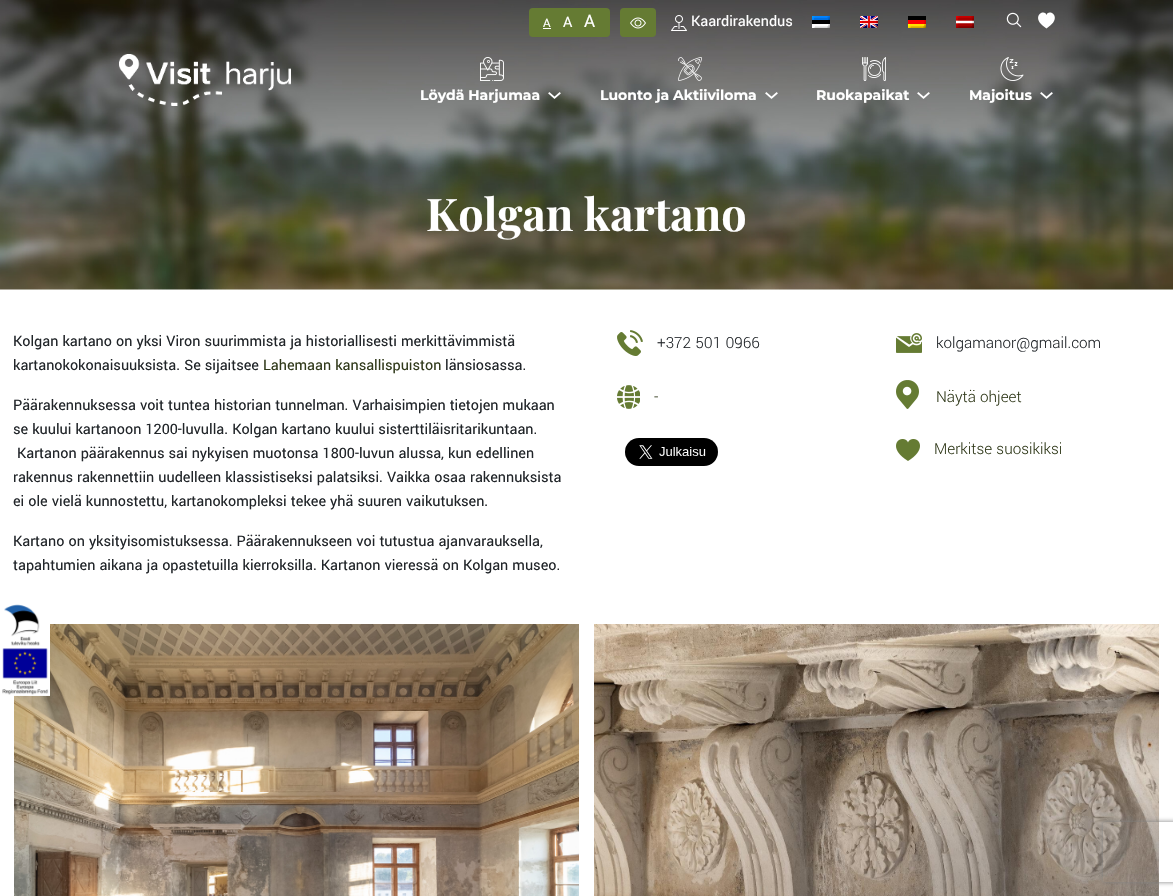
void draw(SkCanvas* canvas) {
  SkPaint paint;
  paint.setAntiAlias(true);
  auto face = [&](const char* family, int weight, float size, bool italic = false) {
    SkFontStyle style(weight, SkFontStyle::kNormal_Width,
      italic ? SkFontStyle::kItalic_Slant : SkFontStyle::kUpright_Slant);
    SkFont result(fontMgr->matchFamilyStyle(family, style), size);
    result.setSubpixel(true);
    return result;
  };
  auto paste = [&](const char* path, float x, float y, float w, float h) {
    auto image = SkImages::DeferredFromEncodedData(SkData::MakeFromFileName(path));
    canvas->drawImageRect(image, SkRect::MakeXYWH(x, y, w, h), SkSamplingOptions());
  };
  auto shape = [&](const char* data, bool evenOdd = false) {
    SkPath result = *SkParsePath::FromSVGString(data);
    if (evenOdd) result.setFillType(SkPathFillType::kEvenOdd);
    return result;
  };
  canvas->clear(0xffffffff);
  paste("img/17.png", 0, 0, 1173, 290);
  paint.setColor(0xff657b33);
  canvas->drawRoundRect(SkRect::MakeXYWH(529, 8, 81, 29), 4, 4, paint);
  paint.setColor(0xffffffff);
  canvas->drawRect(SkRect::MakeXYWH(543, 28, 8, 1), paint);
  paint.setColor(0xff657b33);
  canvas->drawRoundRect(SkRect::MakeXYWH(620, 8, 36, 29), 4, 4, paint);
  paste("img/1.png", 630, 17, 16, 12);
  paste("img/2.png", 671, 15, 16, 16);
  paste("img/3.png", 812, 16, 18, 12);
  paste("img/4.png", 860, 16, 18, 12);
  paste("img/5.png", 908, 16, 18, 12);
  paste("img/6.png", 956, 16, 18, 12);
  paste("img/7.png", 1006, 12, 16, 16);
  paint.setColor(0xffffffff);
  canvas->drawPath(shape("M1046.5 15C1044 8 1029 17.5 1046.5 28.5C1064 17.5 1049 8 1046.5 15Z"), paint);
  paste("img/8.png", 119, 54, 172, 52);
  paste("img/9.png", 480, 57, 24, 24);
  paste("img/10.png", 548, 92, 13, 7);
  paste("img/11.png", 678, 57, 24, 24);
  paste("img/12.png", 765, 92, 13, 7);
  paste("img/13.png", 862, 57, 24, 24);
  paste("img/14.png", 917, 92, 13, 7);
  paste("img/15.png", 1000, 57, 24, 24);
  paste("img/16.png", 1040, 92, 13, 7);
  paste("img/18.png", 617, 330, 26, 26);
  paste("img/19.png", 896, 333, 26, 20);
  paste("img/20.png", 617, 385, 23, 24);
  paste("img/21.png", 896, 380, 23, 29);
  paste("img/22.png", 625, 438, 93, 28);
  paste("img/23.png", 896, 439, 24, 22);
  paste("img/24.png", 14, 624, 565, 272);
  paste("img/25.png", 594, 624, 565, 272);
  paste("img/26.png", 2, 604, 48, 92);
  canvas->save();
  canvas->clipPath(shape("M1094 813H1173V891H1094ZM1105 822H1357C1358 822 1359 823 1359 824V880C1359 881 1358 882 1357 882H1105C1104 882 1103 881 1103 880V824C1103 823 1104 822 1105 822Z", true), true);
  paint.setColor(0xff808080);
  paint.setMaskFilter(SkMaskFilter::MakeBlur(kNormal_SkBlurStyle, 2.5f));
  canvas->drawRoundRect(SkRect::MakeXYWH(1103, 822, 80, 60), 2, 2, paint);
  paint.setMaskFilter(nullptr);
  canvas->restore();
  auto f0 = face("Yantramanav", 400, 13);
  paint.setColor(0xffffffff);
  canvas->drawString("A", 543, 27, f0, paint);
  auto f1 = face("Yantramanav", 400, 16);
  canvas->drawString("A", 563, 27, f1, paint);
  auto f2 = face("Yantramanav", 400, 19);
  canvas->drawString("A", 584, 27, f2, paint);
  canvas->drawString("Kaardirakendus", 691, 26, f1, paint);
  auto f3 = face("Montserrat", 700, 14);
  {
    const struct { const char* s; float x, y; } items[] = {
      {"Löydä Harjumaa", 420, 100},
      {"Luonto ja Aktiiviloma", 600, 100},
      {"Ruokapaikat", 816, 100},
      {"Majoitus", 969, 100},
    };
    for (auto [s, x, y] : items) {
      canvas->drawString(s, x, y, f3, paint);
    }
  }
  auto f4 = face("Playfair Display", 700, 45);
  canvas->drawString("Kolgan kartano", 426, 231, f4, paint);
  paint.setColor(0xff212529);
  canvas->drawString("Kolgan kartano on yksi Viron suurimmista ja historiallisesti merkittävimmistä", 13, 346, f1, paint);
  canvas->drawString("kartanokokonaisuuksista. Se sijaitsee", 13, 370, f1, paint);
  paint.setColor(0xff313a1b);
  canvas->drawString("Lahemaan kansallispuiston", 263, 370, f1, paint);
  paint.setColor(0xff212529);
  {
    const struct { const char* s; float x, y; } items[] = {
      {"länsiosassa.", 445, 370},
      {"Päärakennuksessa voit tuntea historian tunnelman. Varhaisimpien tietojen mukaan", 13, 410},
      {"se kuului kartanoon 1200-luvulla. Kolgan kartano kuului sisterttiläisritarikuntaan.", 13, 434},
      {"Kartanon päärakennus sai nykyisen muotonsa 1800-luvun alussa, kun edellinen", 17, 458},
      {"rakennus rakennettiin uudelleen klassistiseksi palatsiksi. Vaikka osaa rakennuksista", 13, 482},
      {"ei ole vielä kunnostettu, kartanokompleksi tekee yhä suuren vaikutuksen.", 13, 506},
      {"Kartano on yksityisomistuksessa. Päärakennukseen voi tutustua ajanvarauksella,", 13, 546},
      {"tapahtumien aikana ja opastetuilla kierroksilla. Kartanon vieressä on Kolgan museo.", 13, 570},
    };
    for (auto [s, x, y] : items) {
      canvas->drawString(s, x, y, f1, paint);
    }
  }
  auto f5 = face("Yantramanav", 300, 17);
  canvas->drawString("+372 501 0966", 657, 348, f5, paint);
  canvas->drawString("kolgamanor@gmail.com", 936, 348, f5, paint);
  paint.setColor(0xff313a1b);
  {
    const struct { const char* s; float x, y; } items[] = {
      {"-", 654, 402},
      {"Näytä ohjeet", 936, 402},
      {"Merkitse suosikiksi", 934, 454},
    };
    for (auto [s, x, y] : items) {
      canvas->drawString(s, x, y, f5, paint);
    }
  }
}
